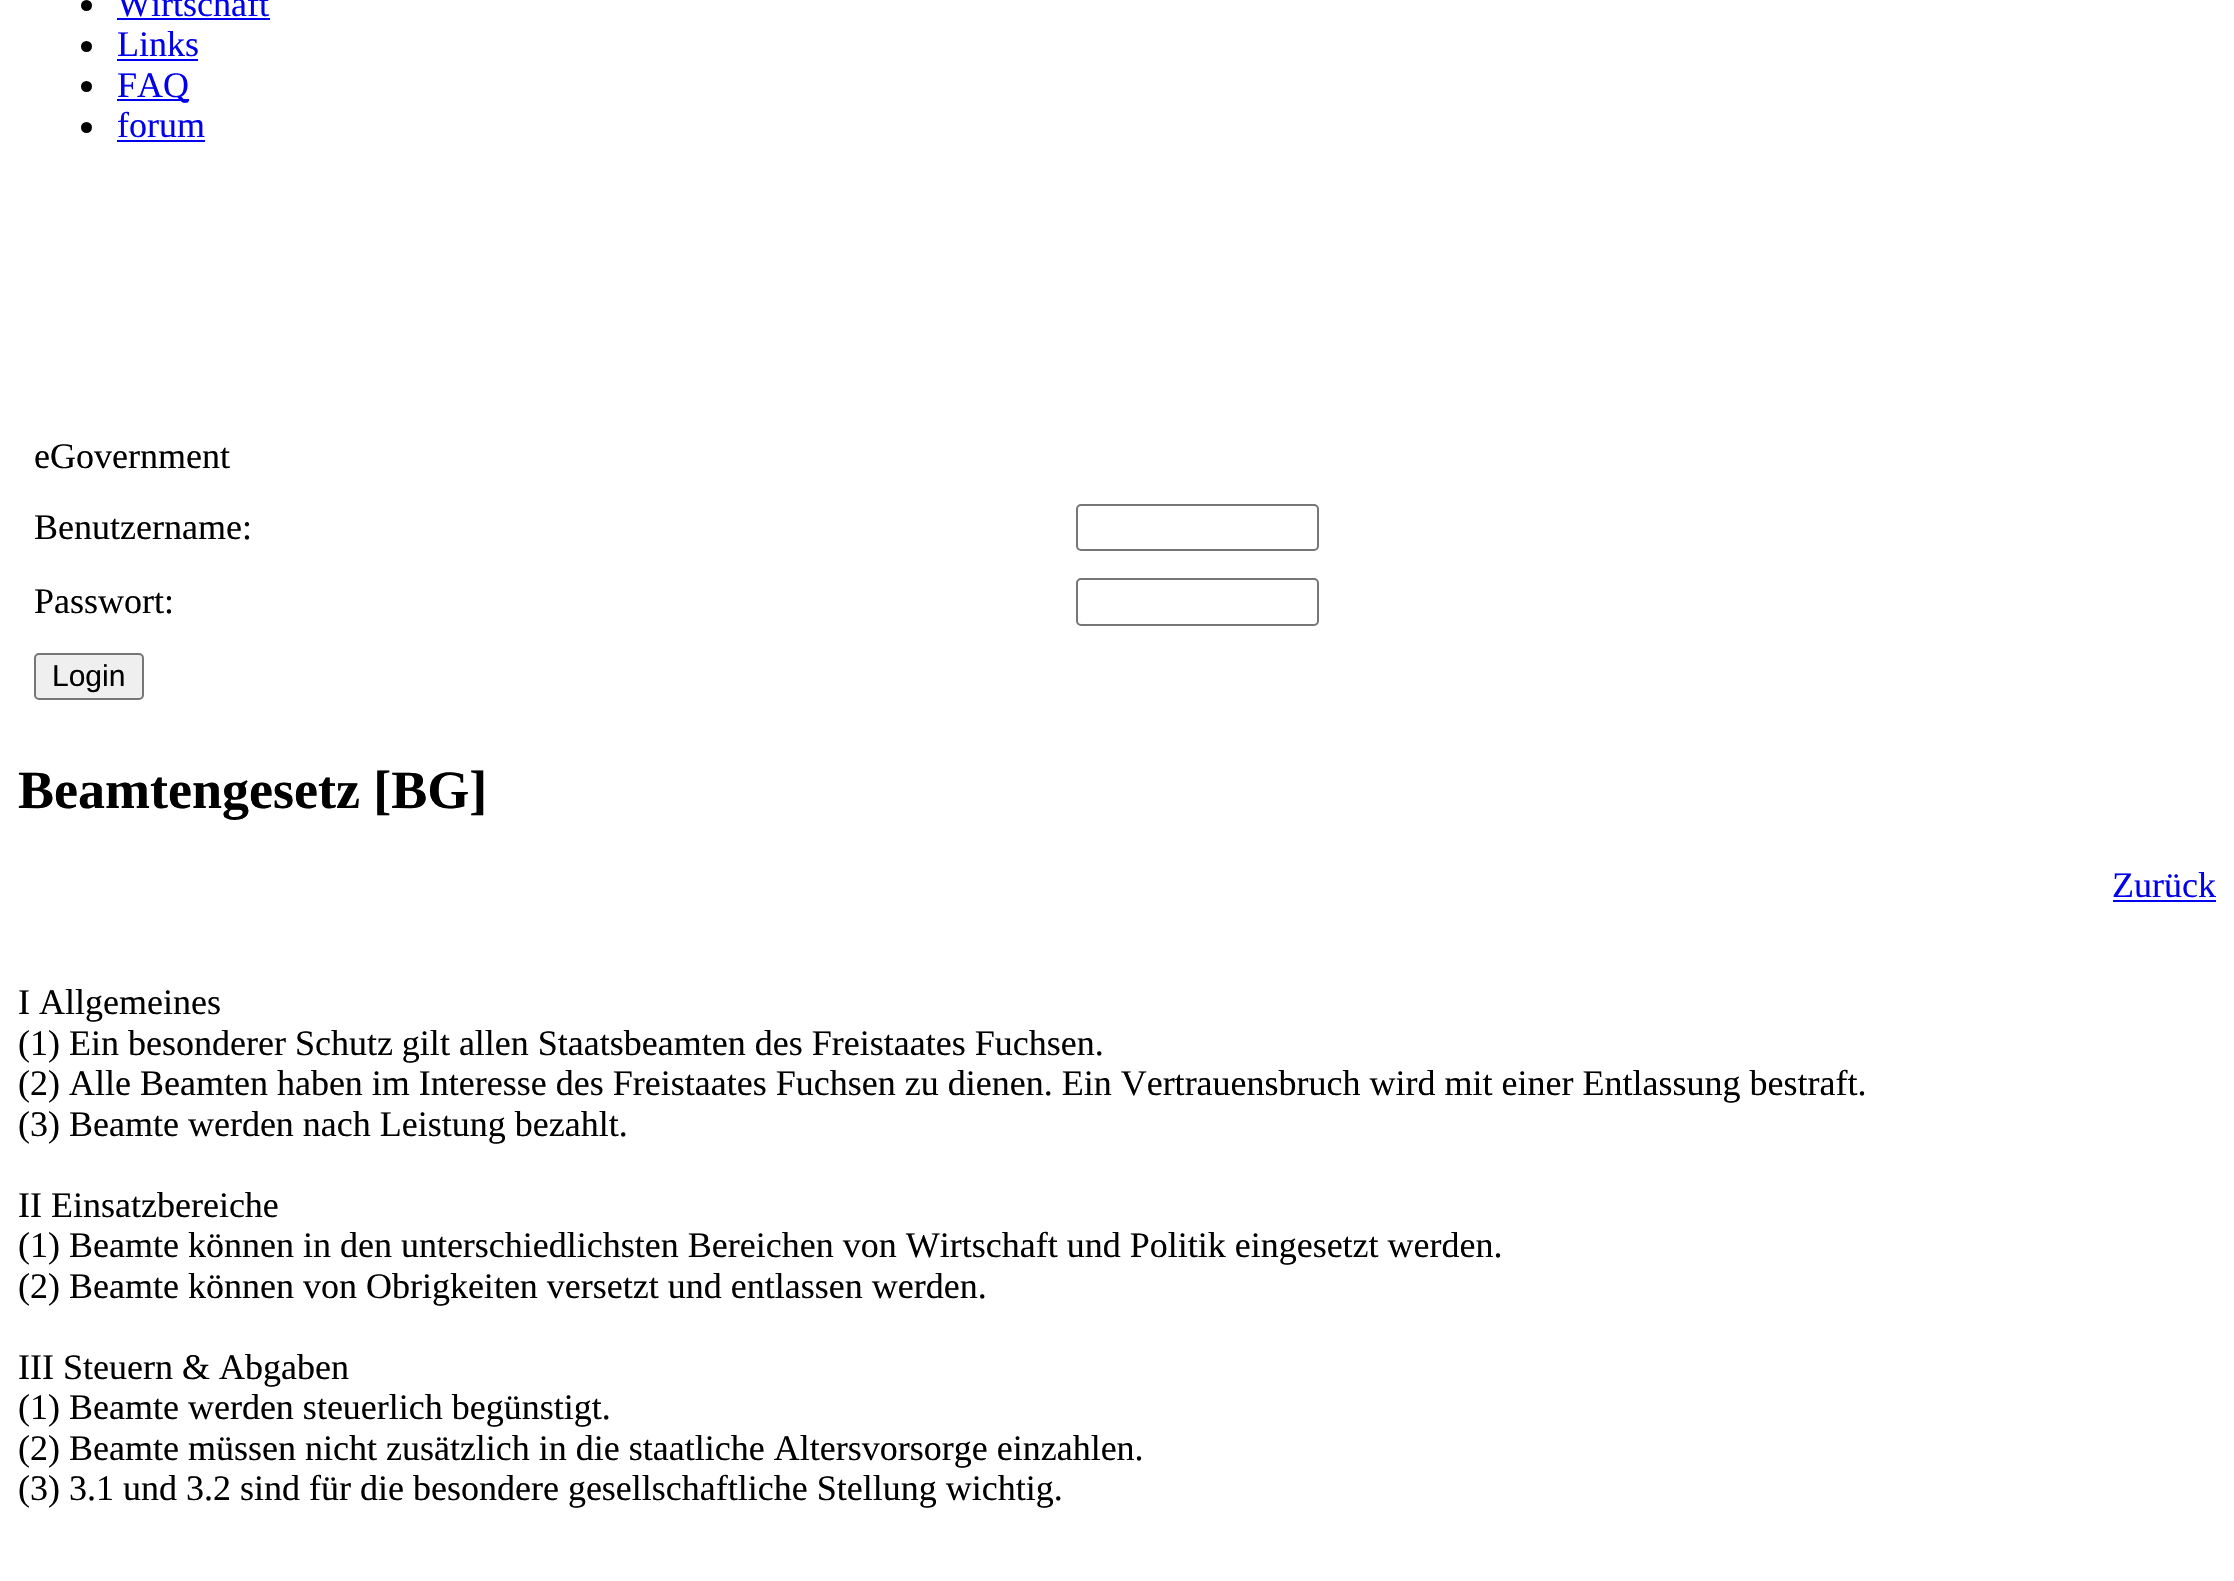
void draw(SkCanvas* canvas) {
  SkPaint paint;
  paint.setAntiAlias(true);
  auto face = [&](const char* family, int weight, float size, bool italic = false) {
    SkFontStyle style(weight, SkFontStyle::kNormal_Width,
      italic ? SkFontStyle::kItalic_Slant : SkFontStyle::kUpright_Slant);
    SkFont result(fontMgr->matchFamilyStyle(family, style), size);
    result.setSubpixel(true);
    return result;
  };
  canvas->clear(0xffffffff);
  paint.setColor(0xff000000);
  canvas->drawCircle(86.5f, 5.5f, 5.5f, paint);
  paint.setColor(0xff0000ee);
  canvas->drawRect(SkRect::MakeXYWH(117, 18, 153, 2), paint);
  paint.setColor(0xff000000);
  canvas->drawCircle(86.5f, 46.5f, 5.5f, paint);
  paint.setColor(0xff0000ee);
  canvas->drawRect(SkRect::MakeXYWH(117, 59, 81, 2), paint);
  paint.setColor(0xff000000);
  canvas->drawCircle(86.5f, 86.5f, 5.5f, paint);
  paint.setColor(0xff0000ee);
  canvas->drawRect(SkRect::MakeXYWH(117, 99, 72, 2), paint);
  paint.setColor(0xff000000);
  canvas->drawCircle(86.5f, 127.5f, 5.5f, paint);
  paint.setColor(0xff0000ee);
  canvas->drawRect(SkRect::MakeXYWH(117, 140, 88, 2), paint);
  paint.setStroke(true);
  paint.setStrokeWidth(2);
  paint.setColor(0xff767676);
  canvas->drawRoundRect(SkRect::MakeXYWH(1077, 505, 241, 45), 4, 4, paint);
  canvas->drawRoundRect(SkRect::MakeXYWH(1077, 579, 241, 46), 4, 4, paint);
  paint.setStroke(false);
  paint.setColor(0xffefefef);
  canvas->drawRoundRect(SkRect::MakeXYWH(35, 654, 108, 45), 4, 4, paint);
  paint.setStroke(true);
  paint.setColor(0xff767676);
  canvas->drawRoundRect(SkRect::MakeXYWH(35, 654, 108, 45), 4, 4, paint);
  paint.setStroke(false);
  paint.setColor(0xff0000ee);
  canvas->drawRect(SkRect::MakeXYWH(2113, 900, 103, 2), paint);
  auto f0 = face("Liberation Serif", 400, 36);
  {
    const struct { const char* s; float x, y; } items[] = {
      {"Wirtschaft", 117, 16},
      {"Links", 117, 56},
      {"FAQ", 117, 97},
      {"forum", 117, 137},
    };
    for (auto [s, x, y] : items) {
      canvas->drawString(s, x, y, f0, paint);
    }
  }
  paint.setColor(0xff000000);
  {
    const struct { const char* s; float x, y; } items[] = {
      {"eGovernment", 34, 468},
      {"Benutzername:", 34, 539},
      {"Passwort:", 34, 613},
    };
    for (auto [s, x, y] : items) {
      canvas->drawString(s, x, y, f0, paint);
    }
  }
  auto f1 = face("Liberation Sans", 400, 30);
  canvas->drawString("Login", 52, 686, f1, paint);
  auto f2 = face("Liberation Serif", 700, 54);
  canvas->drawString("Beamtengesetz [BG]", 18, 808, f2, paint);
  paint.setColor(0xff0000ee);
  canvas->drawString("Zurück", 2112, 897, f0, paint);
  paint.setColor(0xff000000);
  {
    const struct { const char* s; float x, y; } items[] = {
      {"I Allgemeines", 18, 1014},
      {"(1) Ein besonderer Schutz gilt allen Staatsbeamten des Freistaates Fuchsen.", 18, 1055},
      {"(2) Alle Beamten haben im Interesse des Freistaates Fuchsen zu dienen. Ein Vertrauensbruch wird mit einer Entlassung bestraft.", 18, 1095},
      {"(3) Beamte werden nach Leistung bezahlt.", 18, 1136},
      {"II Einsatzbereiche", 18, 1217},
      {"(1) Beamte können in den unterschiedlichsten Bereichen von Wirtschaft und Politik eingesetzt werden.", 18, 1257},
      {"(2) Beamte können von Obrigkeiten versetzt und entlassen werden.", 18, 1298},
      {"III Steuern & Abgaben", 18, 1379},
      {"(1) Beamte werden steuerlich begünstigt.", 18, 1419},
      {"(2) Beamte müssen nicht zusätzlich in die staatliche Altersvorsorge einzahlen.", 18, 1460},
      {"(3) 3.1 und 3.2 sind für die besondere gesellschaftliche Stellung wichtig.", 18, 1500},
    };
    for (auto [s, x, y] : items) {
      canvas->drawString(s, x, y, f0, paint);
    }
  }
}
